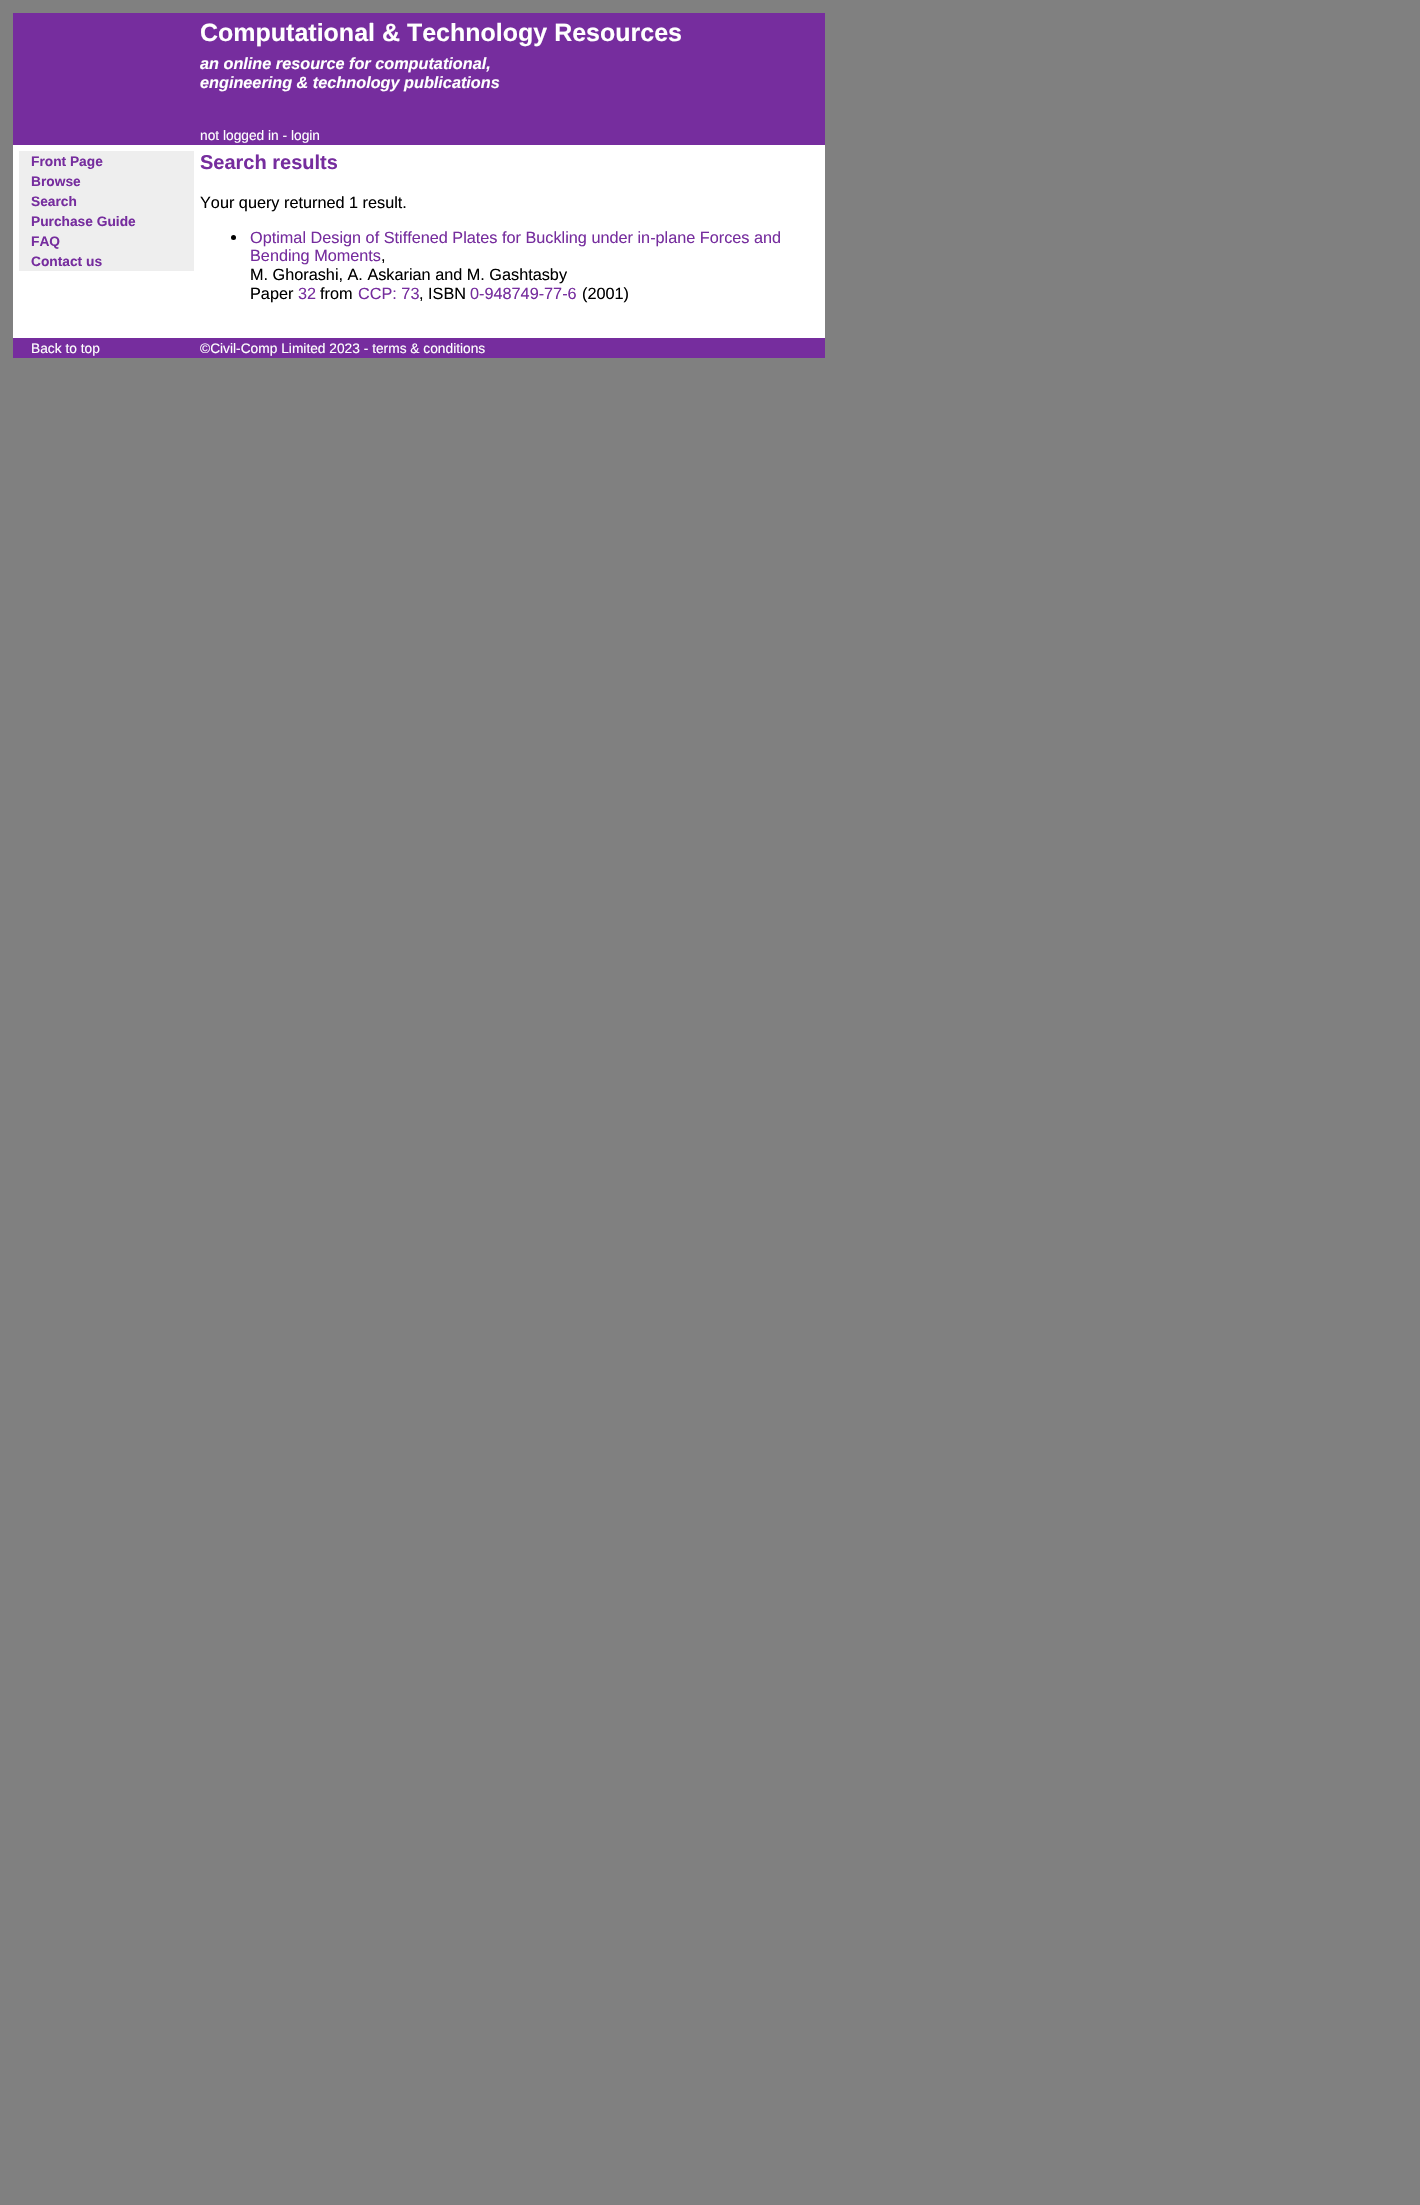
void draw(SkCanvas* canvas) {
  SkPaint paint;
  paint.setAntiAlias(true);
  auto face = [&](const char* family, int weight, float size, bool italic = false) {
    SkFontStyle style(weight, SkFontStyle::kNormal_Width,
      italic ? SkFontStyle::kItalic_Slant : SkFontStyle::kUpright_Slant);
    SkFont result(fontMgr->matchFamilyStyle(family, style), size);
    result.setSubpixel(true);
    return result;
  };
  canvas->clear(0xff808080);
  {
    const struct { float x, y, w, h; SkColor color; } items[] = {
      {13, 145, 812, 193, 0xffffffff},
      {13, 13, 812, 112, 0xff762d9e},
      {13, 125, 812, 20, 0xff762d9e},
      {19, 151, 175, 120, 0xffeeeeee},
    };
    for (auto [x, y, w, h, color] : items) {
      paint.setColor(color);
      canvas->drawRect(SkRect::MakeXYWH(x, y, w, h), paint);
    }
  }
  paint.setColor(0xff000000);
  canvas->drawCircle(233.5f, 237.5f, 2.5f, paint);
  paint.setColor(0xff762d9e);
  canvas->drawRect(SkRect::MakeXYWH(13, 338, 812, 20), paint);
  auto f0 = face("Liberation Sans", 700, 25);
  paint.setColor(0xffffffff);
  canvas->drawString("Computational & Technology Resources", 200, 41, f0, paint);
  auto f1 = face("Liberation Sans", 700, 16.25f, true);
  canvas->drawString("an online resource for computational,", 200, 69, f1, paint);
  canvas->drawString("engineering & technology publications", 200, 88, f1, paint);
  auto f2 = face("Liberation Sans", 400, 13.75f);
  canvas->drawString("not logged in - login", 200, 140, f2, paint);
  auto f3 = face("Liberation Sans", 700, 13.75f);
  paint.setColor(0xff762d9e);
  {
    const struct { const char* s; float x, y; } items[] = {
      {"Front Page", 31, 166},
      {"Browse", 31, 186},
      {"Search", 31, 206},
      {"Purchase Guide", 31, 226},
      {"FAQ", 31, 246},
      {"Contact us", 31, 266},
    };
    for (auto [s, x, y] : items) {
      canvas->drawString(s, x, y, f3, paint);
    }
  }
  auto f4 = face("Liberation Sans", 700, 20);
  canvas->drawString("Search results", 200, 169, f4, paint);
  auto f5 = face("Liberation Sans", 400, 16.25f);
  paint.setColor(0xff000000);
  canvas->drawString("Your query returned 1 result.", 200, 208, f5, paint);
  paint.setColor(0xff762d9e);
  canvas->drawString("Optimal Design of Stiffened Plates for Buckling under in-plane Forces and", 250, 243, f5, paint);
  canvas->drawString("Bending Moments", 250, 261, f5, paint);
  paint.setColor(0xff000000);
  {
    const struct { const char* s; float x, y; } items[] = {
      {",", 381, 261},
      {"M. Ghorashi, A. Askarian and M. Gashtasby", 250, 280},
      {"Paper", 250, 299},
    };
    for (auto [s, x, y] : items) {
      canvas->drawString(s, x, y, f5, paint);
    }
  }
  paint.setColor(0xff762d9e);
  canvas->drawString("32", 298, 299, f5, paint);
  paint.setColor(0xff000000);
  canvas->drawString("from", 320, 299, f5, paint);
  paint.setColor(0xff762d9e);
  canvas->drawString("CCP: 73", 358, 299, f5, paint);
  paint.setColor(0xff000000);
  canvas->drawString(", ISBN", 419, 299, f5, paint);
  paint.setColor(0xff762d9e);
  canvas->drawString("0-948749-77-6", 470, 299, f5, paint);
  paint.setColor(0xff000000);
  canvas->drawString("(2001)", 582, 299, f5, paint);
  paint.setColor(0xffffffff);
  canvas->drawString("Back to top", 31, 353, f2, paint);
  canvas->drawString("©Civil-Comp Limited 2023 - terms & conditions", 200, 353, f2, paint);
}
